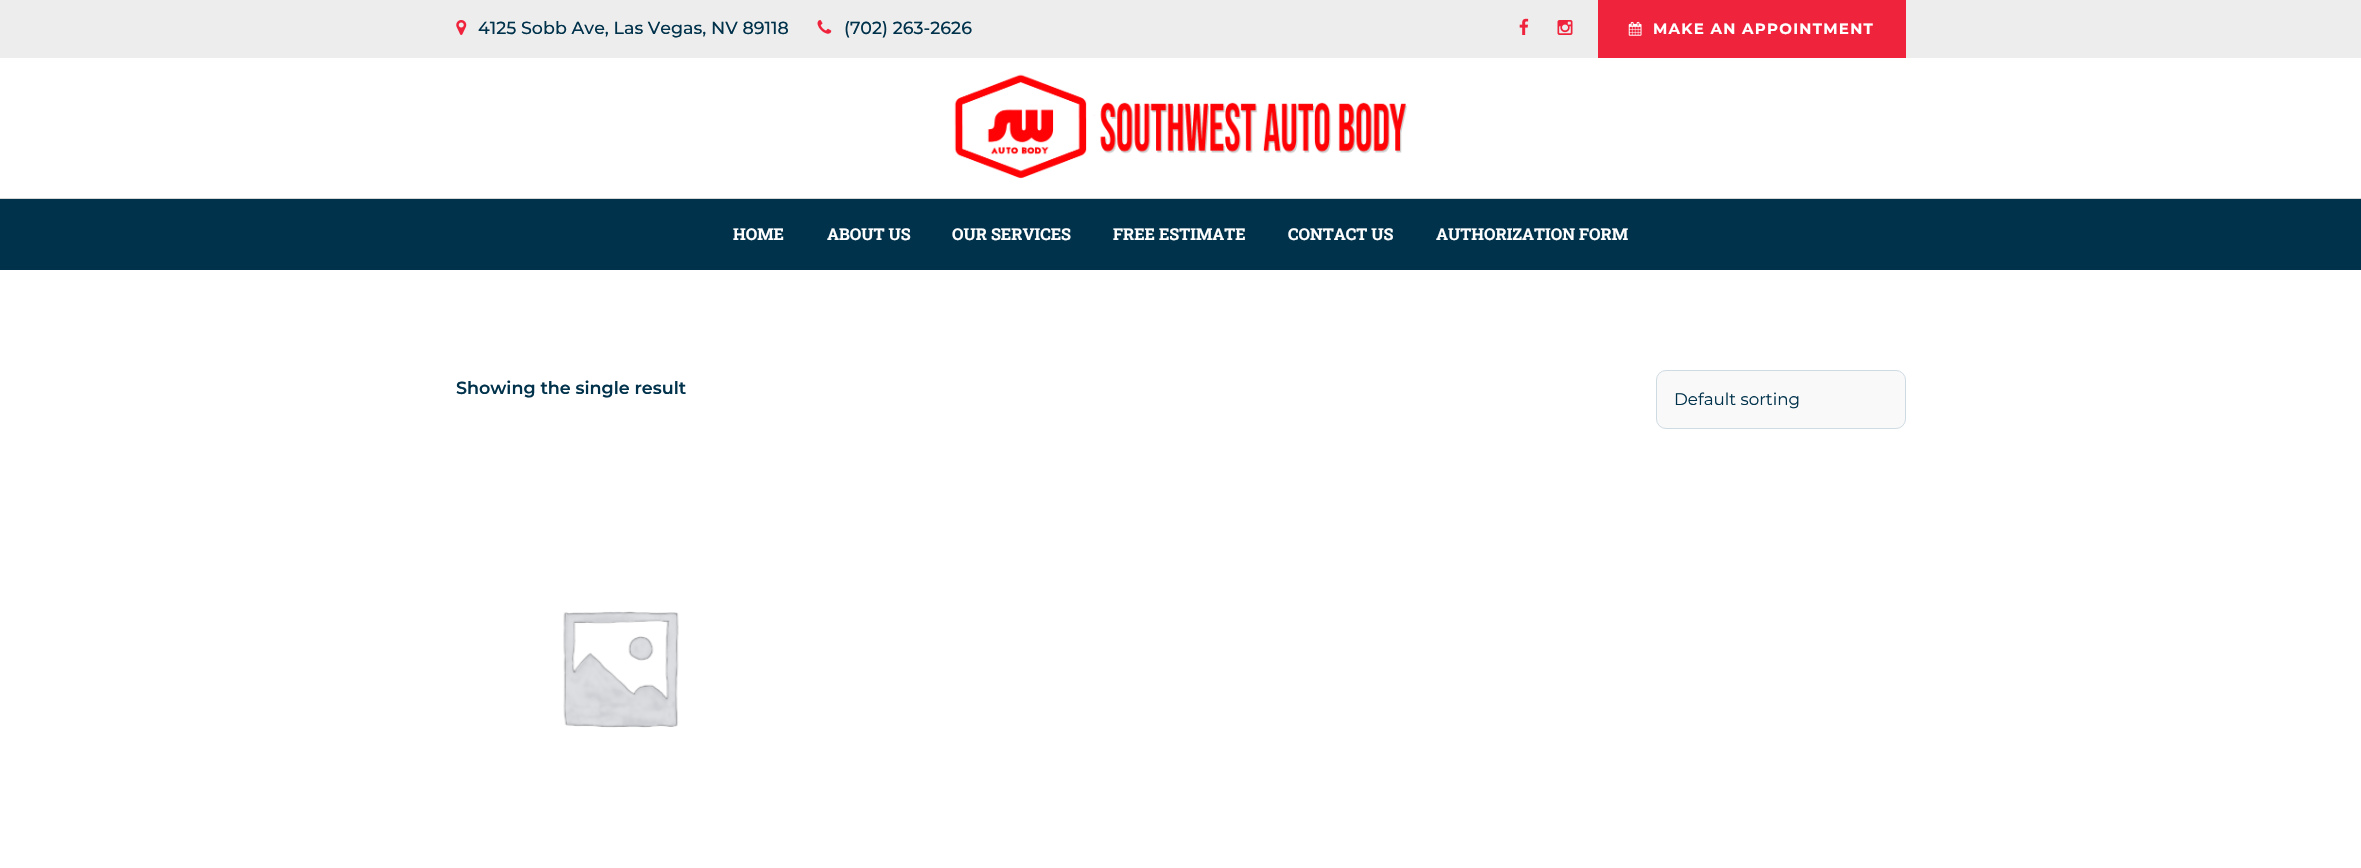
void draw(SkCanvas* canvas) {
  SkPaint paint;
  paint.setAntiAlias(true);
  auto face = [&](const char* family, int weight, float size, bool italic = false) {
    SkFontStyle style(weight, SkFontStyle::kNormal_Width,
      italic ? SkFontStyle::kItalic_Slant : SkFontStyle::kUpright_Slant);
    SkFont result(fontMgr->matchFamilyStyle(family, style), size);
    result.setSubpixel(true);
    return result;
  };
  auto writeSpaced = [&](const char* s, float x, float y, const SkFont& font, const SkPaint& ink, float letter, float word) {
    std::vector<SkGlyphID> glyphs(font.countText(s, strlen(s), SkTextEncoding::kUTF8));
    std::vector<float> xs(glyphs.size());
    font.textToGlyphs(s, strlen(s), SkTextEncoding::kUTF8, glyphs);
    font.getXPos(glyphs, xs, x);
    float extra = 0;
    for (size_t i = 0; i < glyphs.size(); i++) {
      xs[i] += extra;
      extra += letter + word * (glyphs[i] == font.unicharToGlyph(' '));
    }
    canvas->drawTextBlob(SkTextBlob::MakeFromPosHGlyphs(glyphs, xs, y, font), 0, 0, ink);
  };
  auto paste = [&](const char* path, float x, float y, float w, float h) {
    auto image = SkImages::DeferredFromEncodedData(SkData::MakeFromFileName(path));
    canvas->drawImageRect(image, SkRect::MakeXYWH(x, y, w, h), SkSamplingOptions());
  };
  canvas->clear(0xffffffff);
  paint.setColor(0xffededed);
  canvas->drawRect(SkRect::MakeXYWH(0, 0, 2361, 58), paint);
  paste("img/1.png", 456, 20, 11, 15);
  paste("img/2.png", 817, 20, 15, 14);
  paste("img/3.png", 1519, 18, 10, 17);
  paste("img/4.png", 1557, 20, 16, 15);
  paint.setColor(0xffef233c);
  canvas->drawRect(SkRect::MakeXYWH(1598, 0, 308, 58), paint);
  paste("img/5.png", 1628, 21, 14, 15);
  paste("img/6.png", 954, 74, 453, 105);
  paint.setColor(0xff00324b);
  canvas->drawRect(SkRect::MakeXYWH(0, 199, 2361, 71), paint);
  paint.setColor(0xffd6d6d6);
  canvas->drawRect(SkRect::MakeXYWH(0, 198, 2361, 1), paint);
  paint.setColor(0xfff9f9f9);
  canvas->drawRoundRect(SkRect::MakeXYWH(1656.5f, 370.5f, 249, 58), 9.5f, 9.5f, paint);
  paint.setStroke(true);
  paint.setStrokeWidth(1);
  paint.setColor(0xffcfdbe3);
  canvas->drawRoundRect(SkRect::MakeXYWH(1656.5f, 370.5f, 249, 58), 9.5f, 9.5f, paint);
  paste("img/7.png", 563, 611, 116, 117);
  auto f0 = face("Montserrat", 500, 17.5f);
  paint.setStroke(false);
  paint.setColor(0xff00324b);
  canvas->drawString("4125 Sobb Ave, Las Vegas, NV 89118", 478, 34, f0, paint);
  canvas->drawString("(702) 263-2626", 844, 34, f0, paint);
  auto f1 = face("Montserrat", 700, 15);
  paint.setColor(0xffffffff);
  writeSpaced("MAKE AN APPOINTMENT", 1653, 34, f1, paint, 1.25f, 0);
  auto f2 = face("Roboto Slab", 700, 16.25f);
  {
    const struct { const char* s; float x, y; } items[] = {
      {"HOME", 733, 240},
      {"ABOUT US", 827, 240},
      {"OUR SERVICES", 952, 240},
      {"FREE ESTIMATE", 1113, 240},
      {"CONTACT US", 1288, 240},
      {"AUTHORIZATION FORM", 1436, 240},
    };
    for (auto [s, x, y] : items) {
      canvas->drawString(s, x, y, f2, paint);
    }
  }
  auto f3 = face("Montserrat", 600, 17.5f);
  paint.setColor(0xff00324b);
  canvas->drawString("Showing the single result", 456, 394, f3, paint);
  auto f4 = face("Montserrat", 400, 16.75f);
  canvas->drawString("Default sorting", 1674, 405, f4, paint);
}
